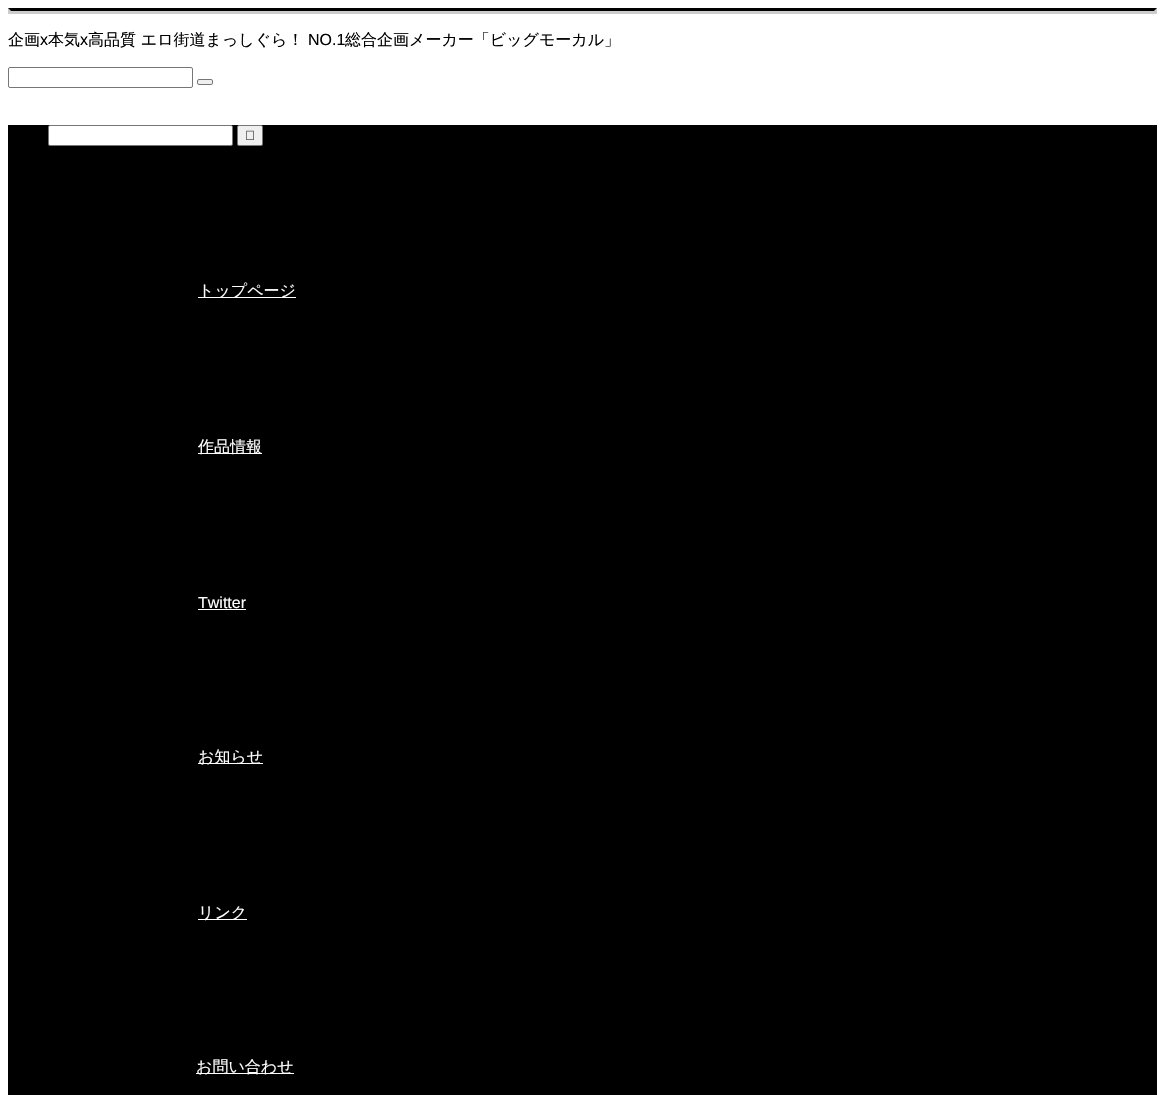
void draw(SkCanvas* canvas) {
  SkPaint paint;
  paint.setAntiAlias(true);
  auto face = [&](const char* family, int weight, float size, bool italic = false) {
    SkFontStyle style(weight, SkFontStyle::kNormal_Width,
      italic ? SkFontStyle::kItalic_Slant : SkFontStyle::kUpright_Slant);
    SkFont result(fontMgr->matchFamilyStyle(family, style), size);
    result.setSubpixel(true);
    return result;
  };
  auto paste = [&](const char* path, float x, float y, float w, float h) {
    auto image = SkImages::DeferredFromEncodedData(SkData::MakeFromFileName(path));
    canvas->drawImageRect(image, SkRect::MakeXYWH(x, y, w, h), SkSamplingOptions());
  };
  auto shape = [&](const char* data, bool evenOdd = false) {
    SkPath result = *SkParsePath::FromSVGString(data);
    if (evenOdd) result.setFillType(SkPathFillType::kEvenOdd);
    return result;
  };
  canvas->clear(0xffffffff);
  paint.setColor(0xff000000);
  canvas->drawPath(shape("M8 8H1157L1154 11H11Z"), paint);
  paint.setColor(0x33000000);
  canvas->drawPath(shape("M1157 8V14L1154 11Z"), paint);
  canvas->drawPath(shape("M1157 14H8L11 11H1154Z"), paint);
  canvas->drawPath(shape("M8 14V8L11 11Z"), paint);
  paint.setStroke(true);
  paint.setStrokeWidth(1);
  paint.setColor(0xff767676);
  canvas->drawRoundRect(SkRect::MakeXYWH(8.5f, 67.5f, 184, 20), 1.5f, 1.5f, paint);
  paint.setStroke(false);
  paint.setColor(0xffefefef);
  canvas->drawRoundRect(SkRect::MakeXYWH(197.5f, 79.5f, 15, 5), 1.5f, 1.5f, paint);
  paint.setStroke(true);
  paint.setColor(0xff767676);
  canvas->drawRoundRect(SkRect::MakeXYWH(197.5f, 79.5f, 15, 5), 1.5f, 1.5f, paint);
  paint.setStroke(false);
  paint.setColor(0xff000000);
  canvas->drawRect(SkRect::MakeXYWH(8, 125, 1149, 970), paint);
  paint.setColor(0xffffffff);
  canvas->drawRoundRect(SkRect::MakeXYWH(48.5f, 125.5f, 184, 20), 1.5f, 1.5f, paint);
  paint.setStroke(true);
  paint.setColor(0xff767676);
  canvas->drawRoundRect(SkRect::MakeXYWH(48.5f, 125.5f, 184, 20), 1.5f, 1.5f, paint);
  paint.setStroke(false);
  paint.setColor(0xffefefef);
  canvas->drawRoundRect(SkRect::MakeXYWH(237.5f, 125.5f, 25, 20), 1.5f, 1.5f, paint);
  paint.setStroke(true);
  paint.setColor(0xff767676);
  canvas->drawRoundRect(SkRect::MakeXYWH(237.5f, 125.5f, 25, 20), 1.5f, 1.5f, paint);
  paste("img/1.png", 246, 130, 8, 10);
  paint.setStroke(false);
  {
    const struct { float x, y, w, h; SkColor color; } items[] = {
      {198, 297, 98, 1, 0xffffffff},
      {198, 453, 64, 1, 0xffffffff},
      {198, 609, 48, 1, 0xffffffff},
      {198, 763, 65, 1, 0xffffffff},
      {198, 919, 49, 1, 0xffffffff},
      {196, 1073, 98, 1, 0xffffffff},
    };
    for (auto [x, y, w, h, color] : items) {
      paint.setColor(color);
      canvas->drawRect(SkRect::MakeXYWH(x, y, w, h), paint);
    }
  }
  auto f0 = face("WenQuanYi Zen Hei", 500, 16);
  paint.setColor(0xff000000);
  canvas->drawString("企画", 8, 45, f0, paint);
  auto f1 = face("Liberation Sans", 400, 16);
  canvas->drawString("x", 40, 45, f1, paint);
  canvas->drawString("本気", 48, 45, f0, paint);
  canvas->drawString("x", 80, 45, f1, paint);
  canvas->drawString("高品質 エロ街道まっしぐら！", 88, 45, f0, paint);
  canvas->drawString("NO.1", 308, 45, f1, paint);
  canvas->drawString("総合企画メーカー「ビッグモーカル」", 345, 45, f0, paint);
  paint.setColor(0xffffffff);
  canvas->drawString("トップページ", 198, 296, f0, paint);
  canvas->drawString("作品情報", 198, 452, f0, paint);
  canvas->drawString("Twitter", 198, 608, f1, paint);
  {
    const struct { const char* s; float x, y; } items[] = {
      {"お知らせ", 198, 762},
      {"リンク", 198, 918},
      {"お問い合わせ", 196, 1072},
    };
    for (auto [s, x, y] : items) {
      canvas->drawString(s, x, y, f0, paint);
    }
  }
}
